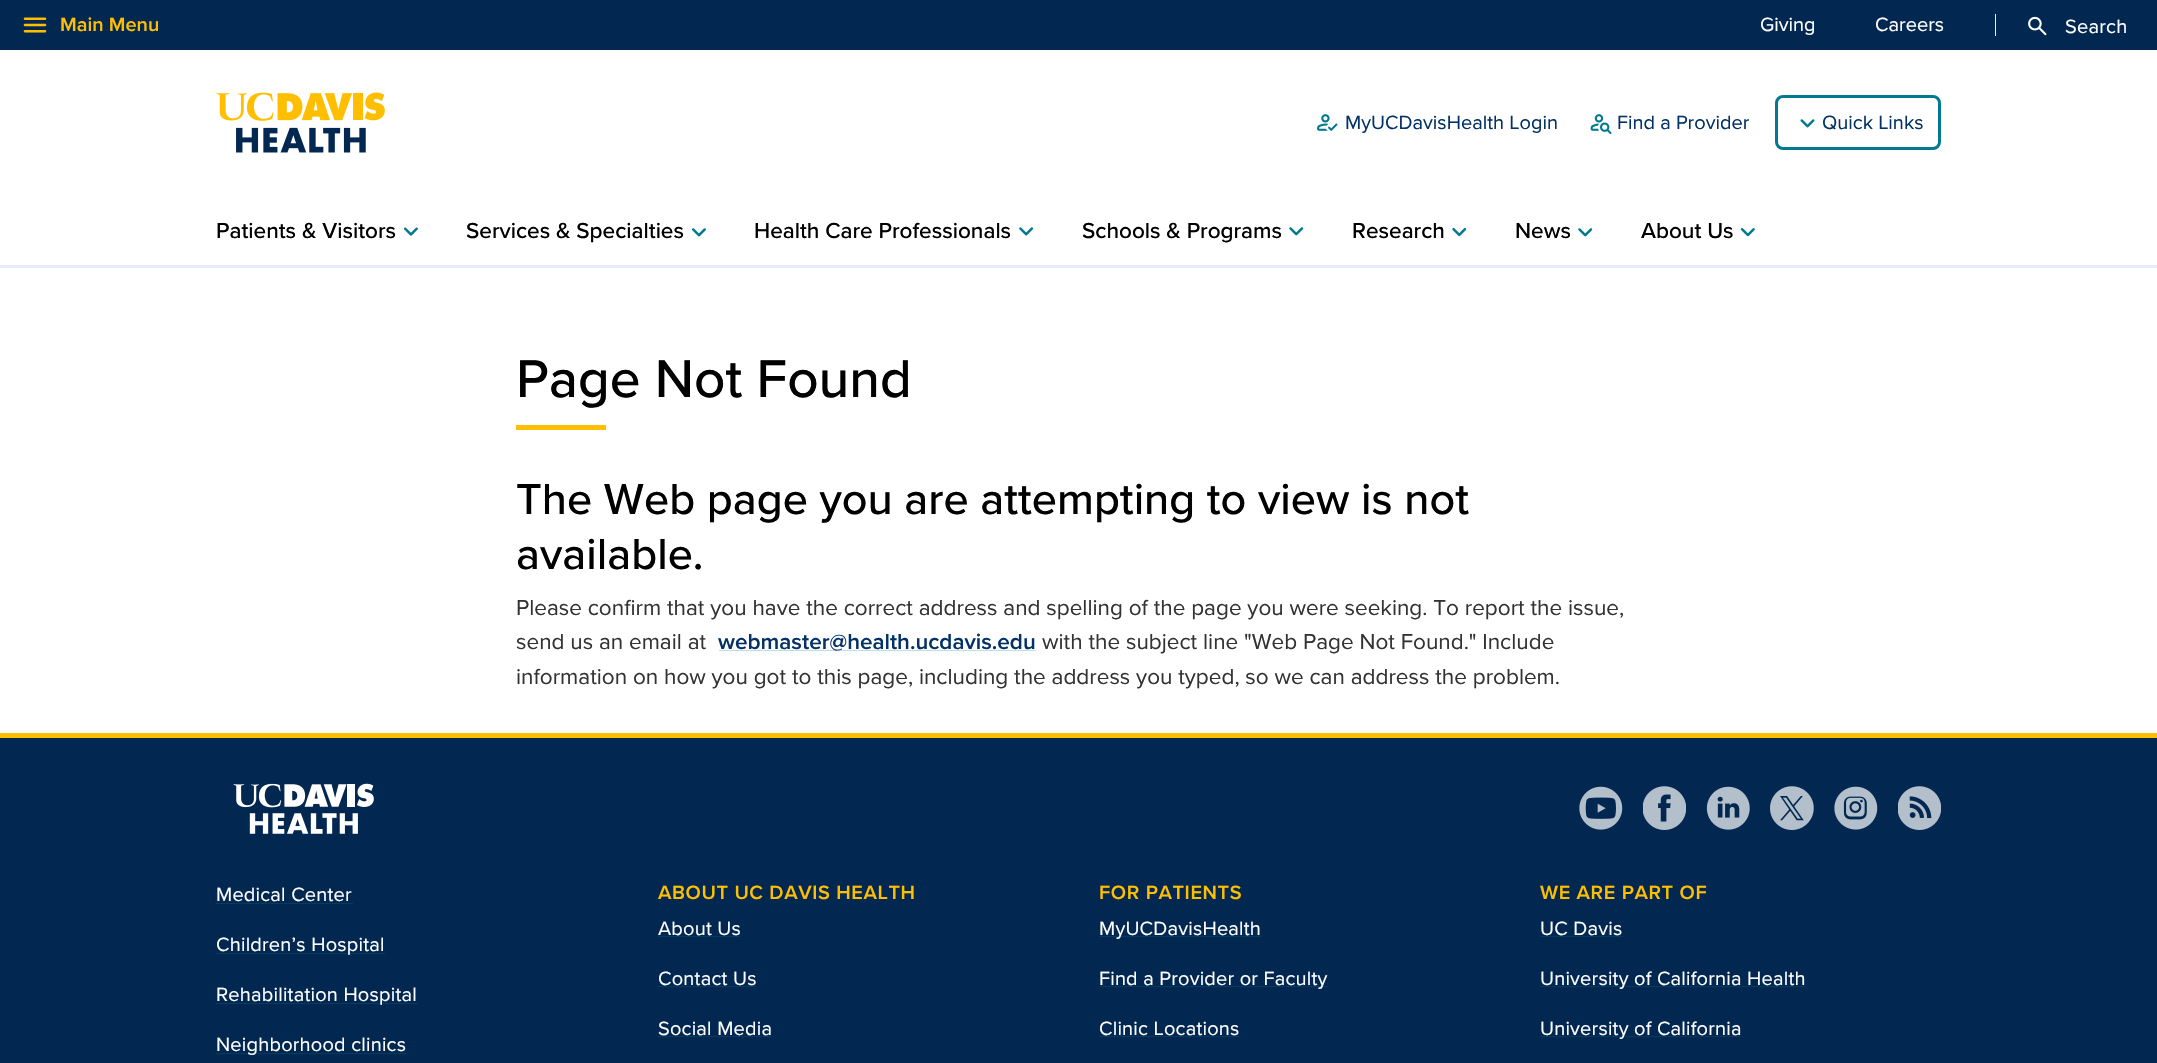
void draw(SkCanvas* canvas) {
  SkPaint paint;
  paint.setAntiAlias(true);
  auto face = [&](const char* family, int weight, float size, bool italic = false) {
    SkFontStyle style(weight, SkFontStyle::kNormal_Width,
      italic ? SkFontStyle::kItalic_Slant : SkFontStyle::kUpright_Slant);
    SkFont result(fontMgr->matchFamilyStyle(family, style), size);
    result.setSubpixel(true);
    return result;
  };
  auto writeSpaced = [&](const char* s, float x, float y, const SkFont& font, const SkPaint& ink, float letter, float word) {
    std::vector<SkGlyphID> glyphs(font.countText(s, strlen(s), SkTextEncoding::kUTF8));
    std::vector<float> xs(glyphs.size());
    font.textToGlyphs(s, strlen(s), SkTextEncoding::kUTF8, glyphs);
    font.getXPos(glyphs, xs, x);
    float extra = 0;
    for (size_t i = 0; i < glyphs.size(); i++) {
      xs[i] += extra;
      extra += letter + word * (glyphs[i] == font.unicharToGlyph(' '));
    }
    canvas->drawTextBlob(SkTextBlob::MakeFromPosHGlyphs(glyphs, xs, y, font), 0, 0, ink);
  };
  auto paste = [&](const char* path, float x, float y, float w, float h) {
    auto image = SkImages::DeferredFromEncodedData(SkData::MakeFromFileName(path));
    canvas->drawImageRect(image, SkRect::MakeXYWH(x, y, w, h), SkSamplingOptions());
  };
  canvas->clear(0xffffffff);
  paint.setColor(0xff022851);
  canvas->drawRect(SkRect::MakeXYWH(0, 0, 2157, 50), paint);
  paste("img/1.png", 23, 17, 24, 16);
  paint.setColor(0xffe6ecf7);
  canvas->drawRect(SkRect::MakeXYWH(1995, 14, 1, 22), paint);
  paste("img/2.png", 2028, 16, 19, 20);
  paste("img/3.png", 216, 92, 169, 61);
  paste("img/4.png", 1317, 114, 21, 17);
  paste("img/5.png", 1590, 114, 22, 20);
  paint.setStroke(true);
  paint.setStrokeWidth(3);
  paint.setColor(0xff007991);
  canvas->drawRoundRect(SkRect::MakeXYWH(1776.5f, 96.5f, 163, 52), 6.5f, 6.5f, paint);
  paste("img/6.png", 1800, 119, 15, 9);
  paint.setStroke(false);
  paint.setColor(0xffe6ecf7);
  canvas->drawRect(SkRect::MakeXYWH(0, 265, 2157, 3), paint);
  paste("img/7.png", 404, 227, 14, 9);
  paste("img/8.png", 692, 228, 14, 9);
  paste("img/9.png", 1019, 227, 15, 9);
  paste("img/10.png", 1289, 227, 15, 9);
  paste("img/11.png", 1452, 227, 15, 10);
  paste("img/12.png", 1578, 228, 15, 9);
  paste("img/13.png", 1740, 228, 15, 9);
  {
    const struct { float x, y, w, h; SkColor color; } items[] = {
      {516, 425, 90, 5, 0xffffbf00},
      {719, 650, 317, 1, 0xffbfdee4},
      {0, 738, 2157, 325, 0xff022851},
      {0, 733, 2157, 5, 0xffffbf00},
    };
    for (auto [x, y, w, h, color] : items) {
      paint.setColor(color);
      canvas->drawRect(SkRect::MakeXYWH(x, y, w, h), paint);
    }
  }
  paste("img/14.png", 233, 783, 141, 51);
  paste("img/15.png", 1579, 786, 44, 44);
  paste("img/16.png", 1643, 786, 43, 44);
  paste("img/17.png", 1706, 786, 44, 44);
  paste("img/18.png", 1770, 786, 44, 44);
  paste("img/19.png", 1834, 786, 44, 44);
  paste("img/20.png", 1898, 786, 43, 44);
  {
    const struct { float x, y, w, h; SkColor color; } items[] = {
      {216, 903, 137, 1, 0xff023c61},
      {216, 953, 169, 1, 0xff023c61},
      {216, 1003, 202, 1, 0xff023c61},
      {216, 1053, 190, 1, 0xff023c61},
      {658, 936, 82, 1, 0xff023c61},
      {658, 986, 98, 1, 0xff023c61},
      {658, 1036, 113, 1, 0xff023c61},
      {1099, 936, 162, 1, 0xff023c61},
      {1099, 986, 229, 1, 0xff023c61},
      {1099, 1036, 140, 1, 0xff023c61},
      {1540, 936, 83, 1, 0xff023c61},
      {1540, 986, 266, 1, 0xff023c61},
      {1540, 1036, 201, 1, 0xff023c61},
    };
    for (auto [x, y, w, h, color] : items) {
      paint.setColor(color);
      canvas->drawRect(SkRect::MakeXYWH(x, y, w, h), paint);
    }
  }
  auto f0 = face("Proxima Nova", 600, 20);
  paint.setColor(0xffffbf00);
  canvas->drawString("Main Menu", 60, 31, f0, paint);
  auto f1 = face("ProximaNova", 400, 20);
  paint.setColor(0xffffffff);
  canvas->drawString("Giving", 1760, 31, f1, paint);
  canvas->drawString("Careers", 1875, 31, f1, paint);
  writeSpaced("Search", 2065, 33, f1, paint, 0.25f, 0);
  paint.setColor(0xff033266);
  {
    const struct { const char* s; float x, y; } items[] = {
      {"MyUCDavisHealth Login", 1345, 129},
      {"Find a Provider", 1617, 129},
      {"Quick Links", 1822, 129},
    };
    for (auto [s, x, y] : items) {
      canvas->drawString(s, x, y, f1, paint);
    }
  }
  auto f2 = face("Proxima Nova", 500, 22.5f);
  paint.setColor(0xff000000);
  {
    const struct { const char* s; float x, y; } items[] = {
      {"Patients & Visitors", 216, 238},
      {"Services & Specialties", 466, 238},
      {"Health Care Professionals", 754, 238},
      {"Schools & Programs", 1082, 238},
      {"Research", 1352, 238},
      {"News", 1515, 238},
      {"About Us", 1641, 238},
    };
    for (auto [s, x, y] : items) {
      canvas->drawString(s, x, y, f2, paint);
    }
  }
  auto f3 = face("Proxima Nova", 500, 55);
  canvas->drawString("Page Not Found", 516, 397, f3, paint);
  auto f4 = face("Proxima Nova", 500, 45);
  canvas->drawString("The Web page you are attempting to view is not", 516, 514, f4, paint);
  canvas->drawString("available.", 516, 569, f4, paint);
  auto f5 = face("ProximaNova", 400, 22.5f);
  paint.setColor(0xff333333);
  canvas->drawString("Please confirm that you have the correct address and spelling of the page you were seeking. To report the issue,", 516, 615, f5, paint);
  canvas->drawString("send us an email at", 516, 649, f5, paint);
  auto f6 = face("Proxima Nova", 600, 22.5f);
  paint.setColor(0xff033266);
  canvas->drawString("webmaster@health.ucdavis.edu", 718, 649, f6, paint);
  paint.setColor(0xff333333);
  canvas->drawString("with the subject line \"Web Page Not Found.\" Include", 1042, 649, f5, paint);
  canvas->drawString("information on how you got to this page, including the address you typed, so we can address the problem.", 516, 684, f5, paint);
  paint.setColor(0xffffffff);
  {
    const struct { const char* s; float x, y; } items[] = {
      {"Medical Center", 216, 901},
      {"Children’s Hospital", 216, 951},
      {"Rehabilitation Hospital", 216, 1001},
      {"Neighborhood clinics", 216, 1051},
    };
    for (auto [s, x, y] : items) {
      writeSpaced(s, x, y, f1, paint, 0.2f, 0);
    }
  }
  paint.setColor(0xffffbf00);
  writeSpaced("ABOUT UC DAVIS HEALTH", 658, 899, f0, paint, 0.6f, 0);
  paint.setColor(0xffffffff);
  {
    const struct { const char* s; float x, y; } items[] = {
      {"About Us", 658, 935},
      {"Contact Us", 658, 985},
      {"Social Media", 658, 1035},
    };
    for (auto [s, x, y] : items) {
      writeSpaced(s, x, y, f1, paint, 0.2f, 0);
    }
  }
  paint.setColor(0xffffbf00);
  writeSpaced("FOR PATIENTS", 1099, 899, f0, paint, 0.6f, 0);
  paint.setColor(0xffffffff);
  {
    const struct { const char* s; float x, y; } items[] = {
      {"MyUCDavisHealth", 1099, 935},
      {"Find a Provider or Faculty", 1099, 985},
      {"Clinic Locations", 1099, 1035},
    };
    for (auto [s, x, y] : items) {
      writeSpaced(s, x, y, f1, paint, 0.2f, 0);
    }
  }
  paint.setColor(0xffffbf00);
  writeSpaced("WE ARE PART OF", 1540, 899, f0, paint, 0.6f, 0);
  paint.setColor(0xffffffff);
  {
    const struct { const char* s; float x, y; } items[] = {
      {"UC Davis", 1540, 935},
      {"University of California Health", 1540, 985},
      {"University of California", 1540, 1035},
    };
    for (auto [s, x, y] : items) {
      writeSpaced(s, x, y, f1, paint, 0.2f, 0);
    }
  }
}
